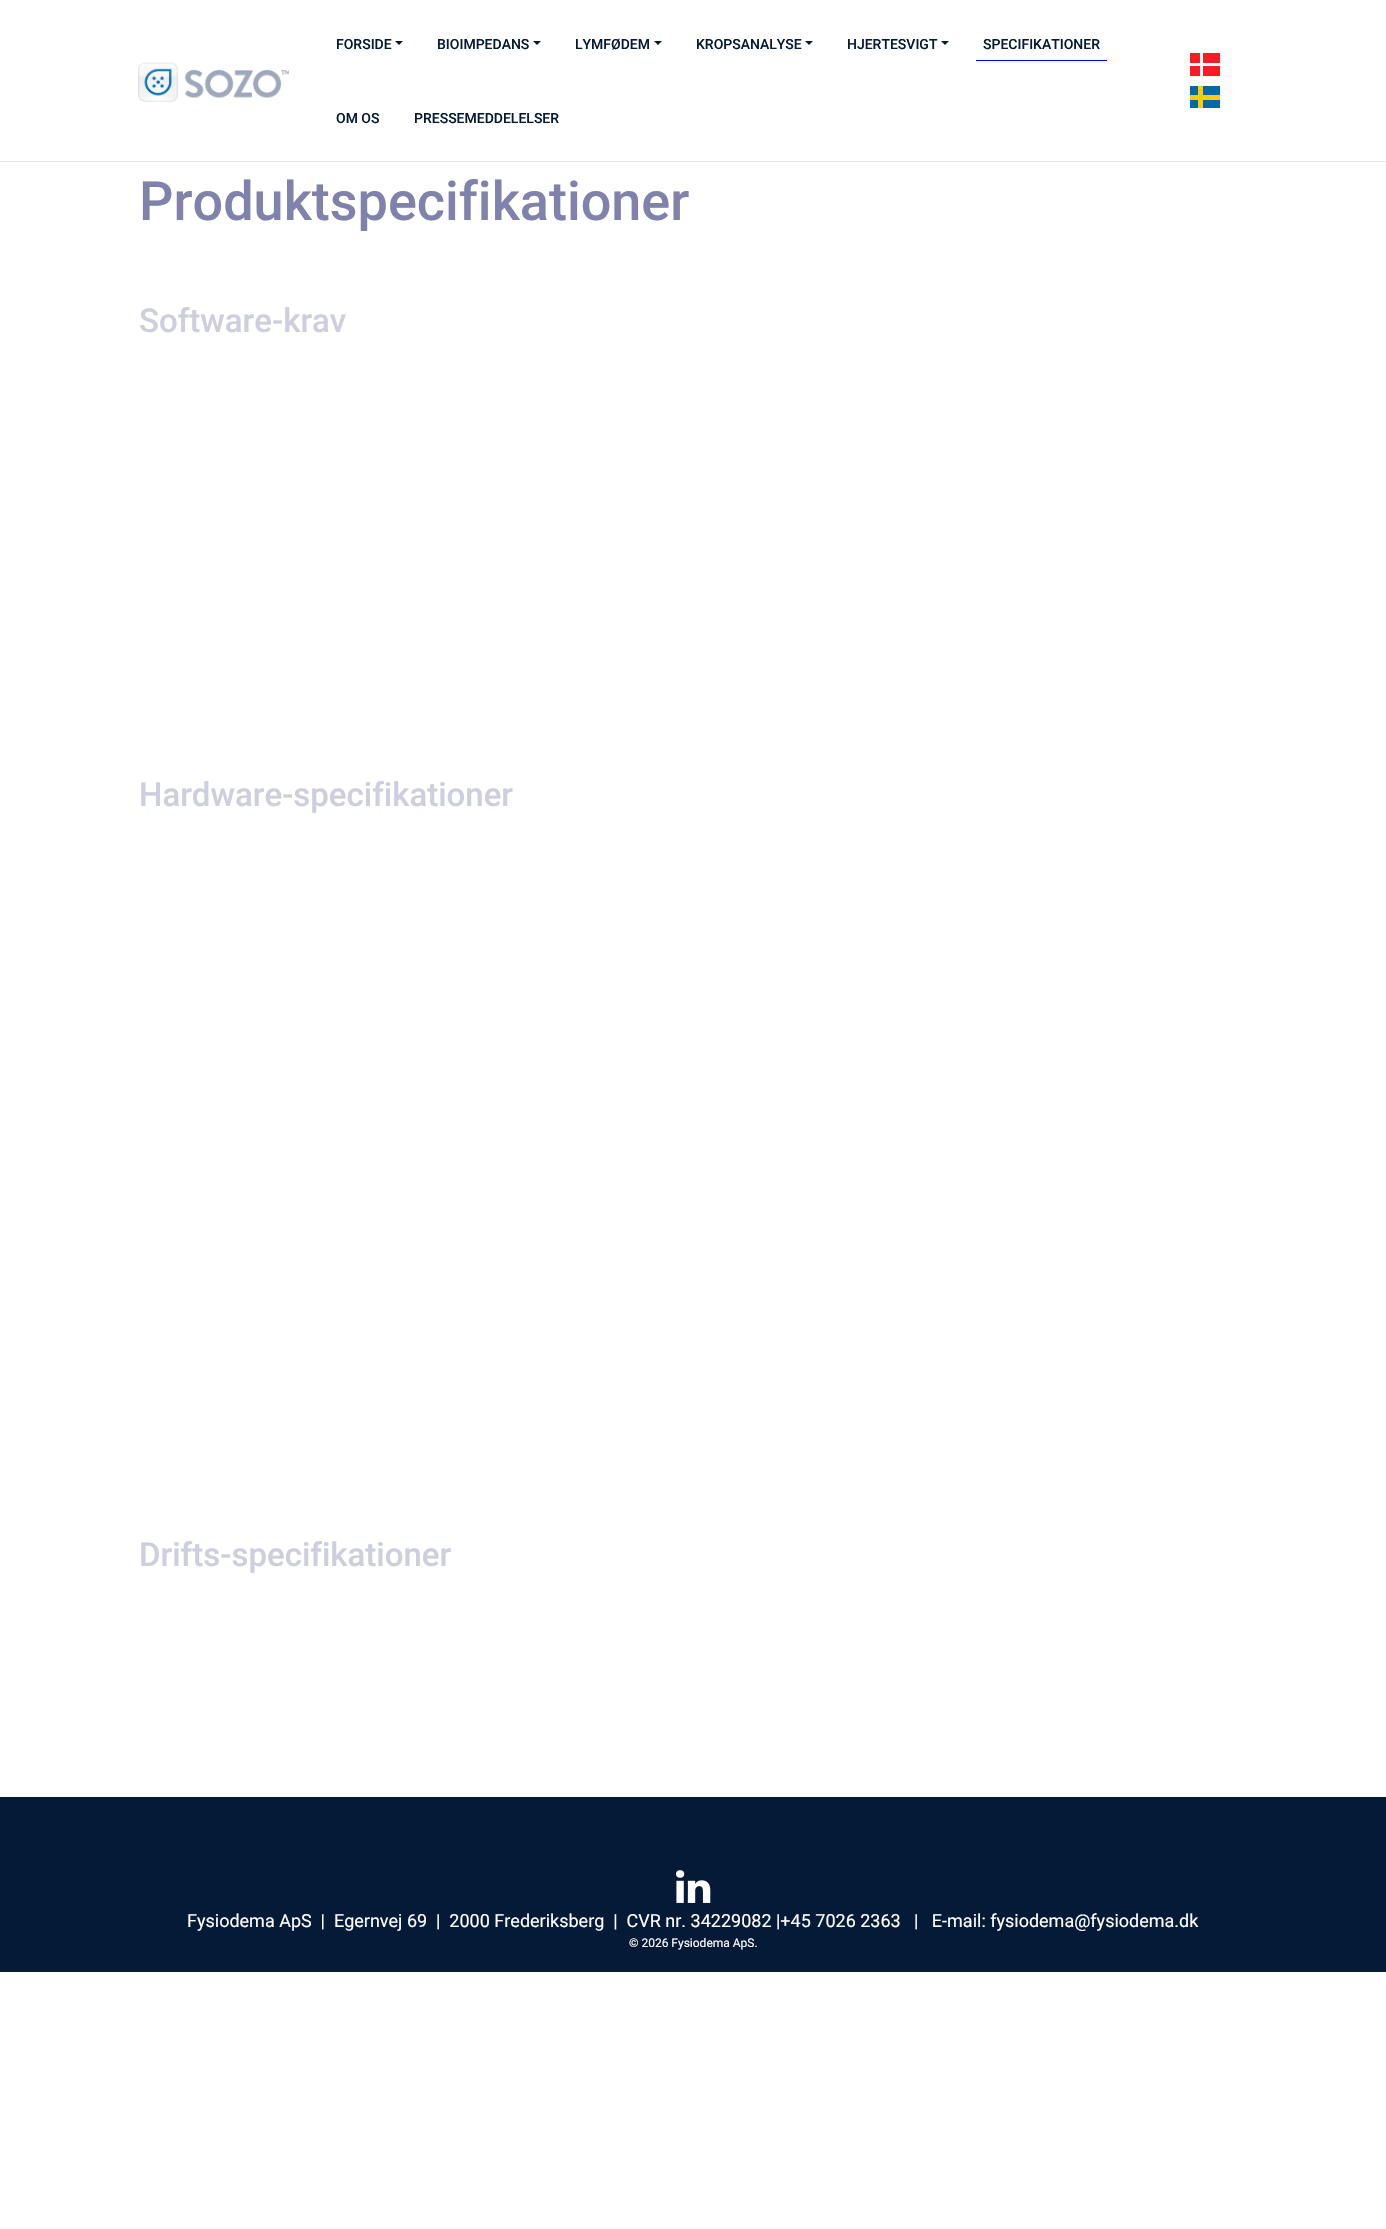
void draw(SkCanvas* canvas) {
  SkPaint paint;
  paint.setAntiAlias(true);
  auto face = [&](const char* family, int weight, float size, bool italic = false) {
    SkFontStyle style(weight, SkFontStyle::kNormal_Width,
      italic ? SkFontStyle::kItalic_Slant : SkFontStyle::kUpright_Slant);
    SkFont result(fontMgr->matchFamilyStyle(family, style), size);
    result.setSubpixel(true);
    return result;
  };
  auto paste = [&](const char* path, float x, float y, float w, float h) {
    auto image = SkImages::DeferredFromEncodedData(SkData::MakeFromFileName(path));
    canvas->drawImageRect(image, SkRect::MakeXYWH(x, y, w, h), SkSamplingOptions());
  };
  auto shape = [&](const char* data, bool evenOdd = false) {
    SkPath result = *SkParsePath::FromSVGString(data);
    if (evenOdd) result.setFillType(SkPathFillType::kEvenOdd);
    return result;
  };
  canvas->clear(0xffffffff);
  paint.setColor(0xffe7e7e7);
  canvas->drawRect(SkRect::MakeXYWH(0, 161, 1386, 1), paint);
  paste("img/1.png", 138, 62, 151, 40);
  paint.setColor(0xff051a36);
  canvas->drawPath(shape("M395 41H403L399 45Z"), paint);
  canvas->drawPath(shape("M533 41H541L537 45Z"), paint);
  canvas->drawPath(shape("M654 41H662L658 45Z"), paint);
  canvas->drawPath(shape("M805 41H813L809 45Z"), paint);
  canvas->drawPath(shape("M941 41H949L945 45Z"), paint);
  {
    const struct { float x, y, w, h; SkColor color; } items[] = {
      {976, 60, 131, 1, 0xff0000ff},
      {1190, 53, 30, 23, 0xfffb1b22},
      {1190, 63, 30, 3, 0xffffffff},
      {1200, 53, 3, 23, 0xffffffff},
      {1190, 86, 8, 9, 0xff006aa7},
      {1198, 86, 5, 22, 0xfffecc00},
      {1203, 86, 17, 9, 0xff006aa7},
      {1190, 95, 8, 5, 0xfffecc00},
      {1203, 95, 17, 5, 0xfffecc00},
      {1190, 100, 8, 8, 0xff006aa7},
      {1203, 100, 17, 8, 0xff006aa7},
      {0, 1797, 1386, 175, 0xff051a36},
    };
    for (auto [x, y, w, h, color] : items) {
      paint.setColor(color);
      canvas->drawRect(SkRect::MakeXYWH(x, y, w, h), paint);
    }
  }
  paste("img/2.png", 676, 1870, 35, 33);
  auto f0 = face("Roboto", 500, 14);
  {
    const struct { const char* s; float x, y; } items[] = {
      {"FORSIDE", 336, 49},
      {"BIOIMPEDANS", 437, 49},
      {"LYMFØDEM", 575, 49},
      {"KROPSANALYSE", 696, 49},
      {"HJERTESVIGT", 847, 49},
      {"SPECIFIKATIONER", 983, 49},
      {"OM OS", 336, 123},
      {"PRESSEMEDDELELSER", 414, 123},
    };
    for (auto [s, x, y] : items) {
      canvas->drawString(s, x, y, f0, paint);
    }
  }
  auto f1 = face("Roboto", 500, 54);
  paint.setColor(0xff8082ab);
  canvas->drawString("Produktspecifikationer", 139, 220, f1, paint);
  auto f2 = face("Roboto", 500, 33);
  paint.setColor(0xffcdcede);
  {
    const struct { const char* s; float x, y; } items[] = {
      {"Software-krav", 139, 332},
      {"Hardware-specifikationer", 139, 806},
      {"Drifts-specifikationer", 139, 1566},
    };
    for (auto [s, x, y] : items) {
      canvas->drawString(s, x, y, f2, paint);
    }
  }
  auto f3 = face("Roboto", 400, 18);
  paint.setColor(0xffffffff);
  canvas->drawString("Fysiodema ApS  |  Egernvej 69  |  2000 Frederiksberg  |  CVR nr. 34229082 |+45 7026 2363   |   E-mail: fysiodema@fysiodema.dk", 187, 1927, f3, paint);
  auto f4 = face("Roboto", 400, 12);
  canvas->drawString("© 2026 Fysiodema ApS.", 629, 1947, f4, paint);
}
